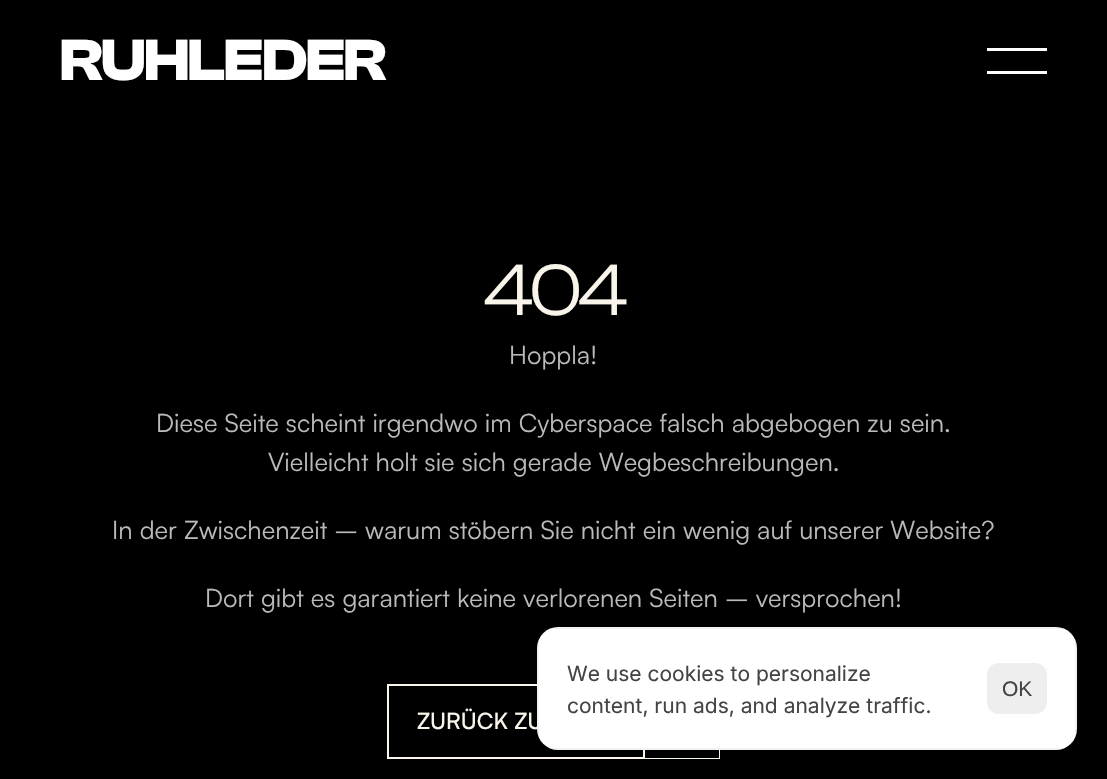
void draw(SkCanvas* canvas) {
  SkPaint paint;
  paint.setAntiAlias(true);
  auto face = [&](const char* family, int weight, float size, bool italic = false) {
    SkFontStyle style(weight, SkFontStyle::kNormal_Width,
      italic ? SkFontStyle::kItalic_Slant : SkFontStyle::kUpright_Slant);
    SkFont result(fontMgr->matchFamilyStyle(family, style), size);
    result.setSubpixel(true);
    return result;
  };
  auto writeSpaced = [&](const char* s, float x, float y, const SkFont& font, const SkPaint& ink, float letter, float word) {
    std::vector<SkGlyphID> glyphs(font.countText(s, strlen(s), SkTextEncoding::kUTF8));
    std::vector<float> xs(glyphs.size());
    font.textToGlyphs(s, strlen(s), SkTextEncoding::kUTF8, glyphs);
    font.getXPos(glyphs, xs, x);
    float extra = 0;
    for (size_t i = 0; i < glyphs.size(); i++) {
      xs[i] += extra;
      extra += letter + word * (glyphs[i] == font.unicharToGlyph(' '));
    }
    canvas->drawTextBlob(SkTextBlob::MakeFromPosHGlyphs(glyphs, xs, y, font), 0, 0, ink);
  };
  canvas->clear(0xff000000);
  paint.setColor(0xffffffff);
  canvas->drawRect(SkRect::MakeXYWH(987, 48, 60, 3), paint);
  canvas->drawRect(SkRect::MakeXYWH(987, 71, 60, 3), paint);
  paint.setStroke(true);
  paint.setStrokeWidth(2);
  paint.setColor(0xfffaf5ea);
  canvas->drawRect(SkRect::MakeXYWH(388, 685, 256, 73), paint);
  paint.setStroke(false);
  canvas->drawRect(SkRect::MakeXYWH(719, 750, 1, 9), paint);
  canvas->drawRect(SkRect::MakeXYWH(645, 758, 75, 1), paint);
  auto f0 = face("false", 700, 60);
  paint.setColor(0xffffffff);
  writeSpaced("RUHLEDER", 60, 80, f0, paint, -1.25f, 0);
  auto f1 = face("false", 400, 75);
  paint.setColor(0xfffaf5ea);
  writeSpaced("404", 483, 315, f1, paint, -4, 0);
  auto f2 = face("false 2", 400, 25.5f);
  paint.setColor(0xffbababa);
  {
    const struct { const char* s; float x, y; } items[] = {
      {"Hoppla!", 509, 364},
      {"Diese Seite scheint irgendwo im Cyberspace falsch abgebogen zu sein.", 156, 432},
      {"Vielleicht holt sie sich gerade Wegbeschreibungen.", 268, 471},
      {"In der Zwischenzeit – warum stöbern Sie nicht ein wenig auf unserer Website?", 112, 539},
      {"Dort gibt es garantiert keine verlorenen Seiten – versprochen!", 205, 607},
    };
    for (auto [s, x, y] : items) {
      canvas->drawString(s, x, y, f2, paint);
    }
  }
  auto f3 = face("Satoshi", 500, 22.5f);
  paint.setColor(0xfffaf5ea);
  canvas->drawString("ZURÜCK ZU", 417, 729, f3, paint);
  paint.setColor(0xffffffff);
  canvas->drawRoundRect(SkRect::MakeXYWH(537, 627, 540, 123), 21, 21, paint);
  paint.setStroke(true);
  paint.setColor(0x0d000000);
  canvas->drawRect(SkRect::MakeXYWH(538, 628, 538, 121), paint);
  auto f4 = face("Inter", 400, 21);
  paint.setStroke(false);
  paint.setColor(0xff444444);
  canvas->drawString("We use cookies to personalize", 567, 681, f4, paint);
  canvas->drawString("content, run ads, and analyze traffic.", 567, 713, f4, paint);
  paint.setColor(0xffeeeeee);
  canvas->drawRoundRect(SkRect::MakeXYWH(987, 663, 60, 51), 12, 12, paint);
  auto f5 = face("Liberation Sans", 400, 21);
  paint.setColor(0xff444444);
  canvas->drawString("OK", 1002, 696, f5, paint);
}
